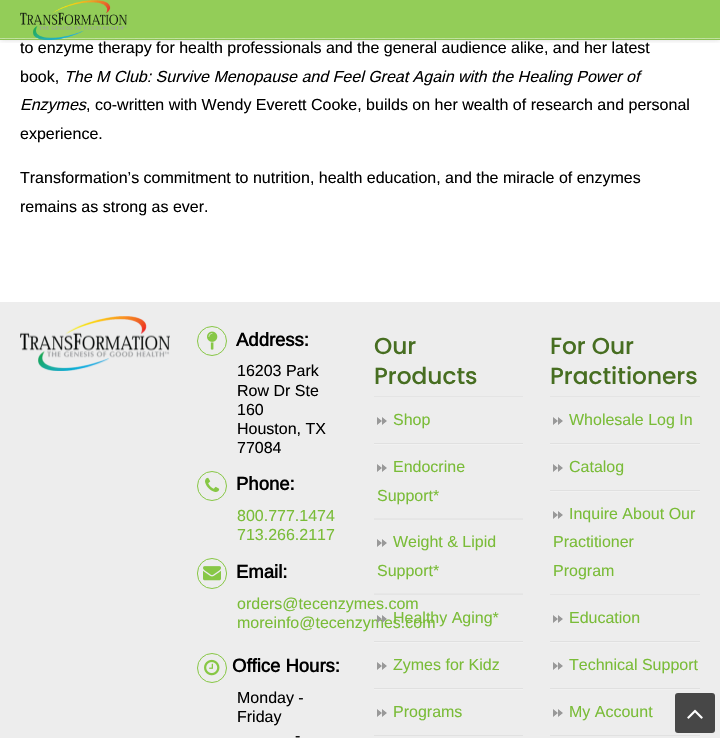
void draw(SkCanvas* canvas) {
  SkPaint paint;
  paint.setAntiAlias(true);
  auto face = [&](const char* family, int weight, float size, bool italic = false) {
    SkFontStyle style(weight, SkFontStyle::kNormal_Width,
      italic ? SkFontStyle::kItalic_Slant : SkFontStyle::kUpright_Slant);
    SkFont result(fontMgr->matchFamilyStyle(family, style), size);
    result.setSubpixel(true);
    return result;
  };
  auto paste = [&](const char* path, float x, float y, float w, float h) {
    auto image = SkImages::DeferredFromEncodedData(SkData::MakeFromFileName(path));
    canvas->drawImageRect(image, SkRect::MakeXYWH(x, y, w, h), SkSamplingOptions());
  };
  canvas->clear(0xffffffff);
  paint.setColor(0xff93cd58);
  canvas->drawRect(SkRect::MakeXYWH(0, 0, 720, 40), paint);
  canvas->save();
  canvas->clipRect(SkRect::MakeXYWH(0, 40, 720, 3));
  paint.setColor(0x24000000);
  paint.setMaskFilter(SkMaskFilter::MakeBlur(kNormal_SkBlurStyle, 2.5f));
  canvas->drawRect(SkRect::MakeXYWH(0, 0, 720, 40), paint);
  paint.setMaskFilter(nullptr);
  canvas->restore();
  paste("img/2.png", 0, 38, 720, 2);
  paste("img/1.png", 20, 0, 107, 40);
  paint.setColor(0xffededed);
  canvas->drawRect(SkRect::MakeXYWH(0, 302, 720, 436), paint);
  paste("img/3.png", 20, 316, 150, 55);
  paint.setStroke(true);
  paint.setStrokeWidth(1);
  paint.setColor(0xff87c745);
  canvas->drawCircle(212, 341, 14.5f, paint);
  paste("img/4.png", 207, 331, 11, 19);
  canvas->drawCircle(212, 486, 14.5f, paint);
  paste("img/5.png", 205, 477, 15, 15);
  canvas->drawRoundRect(SkRect::MakeXYWH(197.5f, 558.5f, 29, 30), 14.5f, 14.5f, paint);
  paste("img/6.png", 203, 566, 18, 15);
  canvas->drawCircle(212, 668, 14.5f, paint);
  paste("img/7.png", 204, 659, 16, 17);
  paint.setStroke(false);
  paint.setColor(0xffe4e4e4);
  canvas->drawRect(SkRect::MakeXYWH(374, 396, 149, 1), paint);
  paste("img/8.png", 374, 443, 149, 2);
  paste("img/9.png", 377, 417, 10, 8);
  paste("img/10.png", 374, 518, 149, 2);
  paste("img/9.png", 377, 464, 10, 8);
  paste("img/11.png", 374, 593, 149, 2);
  paste("img/9.png", 377, 539, 10, 8);
  paste("img/8.png", 374, 641, 149, 2);
  paste("img/8.png", 374, 688, 149, 2);
  paste("img/9.png", 377, 662, 10, 8);
  paint.setColor(0xffe1e1e1);
  canvas->drawRect(SkRect::MakeXYWH(374, 735, 149, 1), paint);
  paste("img/9.png", 377, 709, 10, 8);
  paint.setColor(0xffe4e4e4);
  canvas->drawRect(SkRect::MakeXYWH(550, 396, 150, 1), paint);
  paste("img/13.png", 550, 443, 150, 2);
  paste("img/9.png", 553, 417, 10, 8);
  paste("img/13.png", 550, 490, 150, 2);
  paste("img/9.png", 553, 464, 10, 8);
  canvas->drawRect(SkRect::MakeXYWH(550, 594, 150, 1), paint);
  paste("img/9.png", 553, 511, 10, 8);
  paste("img/13.png", 550, 641, 150, 2);
  paste("img/9.png", 553, 615, 10, 8);
  paste("img/13.png", 550, 688, 150, 2);
  paste("img/9.png", 553, 662, 10, 8);
  paint.setColor(0xffe1e1e1);
  canvas->drawRect(SkRect::MakeXYWH(550, 735, 150, 1), paint);
  paste("img/9.png", 553, 709, 10, 8);
  paint.setColor(0xff474747);
  canvas->drawRoundRect(SkRect::MakeXYWH(675, 693, 40, 40), 3, 3, paint);
  paste("img/14.png", 687, 709, 16, 10);
  auto f0 = face("Arimo", 400, 16);
  paint.setColor(0xff000000);
  canvas->drawString("to enzyme therapy for health professionals and the general audience alike, and her latest", 20, 53, f0, paint);
  canvas->drawString("book,", 20, 82, f0, paint);
  auto f1 = face("Arimo", 400, 16, true);
  canvas->drawString("The M Club: Survive Menopause and Feel Great Again with the Healing Power of", 64, 82, f1, paint);
  canvas->drawString("Enzymes", 20, 110, f1, paint);
  {
    const struct { const char* s; float x, y; } items[] = {
      {", co-written with Wendy Everett Cooke, builds on her wealth of research and personal", 86, 110},
      {"experience.", 20, 139},
      {"Transformation’s commitment to nutrition, health education, and the miracle of enzymes", 20, 183},
      {"remains as strong as ever.", 20, 212},
    };
    for (auto [s, x, y] : items) {
      canvas->drawString(s, x, y, f0, paint);
    }
  }
  auto f2 = face("Arimo", 700, 18.5f);
  canvas->drawString("Address:", 236, 346, f2, paint);
  {
    const struct { const char* s; float x, y; } items[] = {
      {"16203 Park", 237, 376},
      {"Row Dr Ste", 237, 396},
      {"160", 237, 415},
      {"Houston, TX", 237, 434},
      {"77084", 237, 453},
    };
    for (auto [s, x, y] : items) {
      canvas->drawString(s, x, y, f0, paint);
    }
  }
  canvas->drawString("Phone:", 236, 490, f2, paint);
  paint.setColor(0xff7abc38);
  canvas->drawString("800.777.1474", 237, 521, f0, paint);
  canvas->drawString("713.266.2117", 237, 540, f0, paint);
  paint.setColor(0xff000000);
  canvas->drawString("Email:", 236, 578, f2, paint);
  paint.setColor(0xff7abc38);
  canvas->drawString("orders@tecenzymes.com", 237, 609, f0, paint);
  canvas->drawString("moreinfo@tecenzymes.com", 237, 628, f0, paint);
  paint.setColor(0xff000000);
  canvas->drawString("Office Hours:", 232, 672, f2, paint);
  {
    const struct { const char* s; float x, y; } items[] = {
      {"Monday -", 237, 703},
      {"Friday", 237, 722},
      {"-", 295, 741},
    };
    for (auto [s, x, y] : items) {
      canvas->drawString(s, x, y, f0, paint);
    }
  }
  auto f3 = face("Poppins", 500, 23.25f);
  paint.setColor(0xff476e21);
  canvas->drawString("Our", 374, 354, f3, paint);
  canvas->drawString("Products", 374, 384, f3, paint);
  paint.setColor(0xff7abc38);
  {
    const struct { const char* s; float x, y; } items[] = {
      {"Shop", 393, 425},
      {"Endocrine", 393, 472},
      {"Support*", 377, 501},
      {"Weight & Lipid", 393, 547},
      {"Support*", 377, 576},
    };
    for (auto [s, x, y] : items) {
      canvas->drawString(s, x, y, f0, paint);
    }
  }
  paste("img/12.png", 377, 615, 10, 8);
  {
    const struct { const char* s; float x, y; } items[] = {
      {"Healthy Aging*", 393, 623},
      {"Zymes for Kidz", 393, 670},
      {"Programs", 393, 717},
    };
    for (auto [s, x, y] : items) {
      canvas->drawString(s, x, y, f0, paint);
    }
  }
  paint.setColor(0xff476e21);
  canvas->drawString("For Our", 550, 354, f3, paint);
  canvas->drawString("Practitioners", 550, 384, f3, paint);
  paint.setColor(0xff7abc38);
  {
    const struct { const char* s; float x, y; } items[] = {
      {"Wholesale Log In", 569, 425},
      {"Catalog", 569, 472},
      {"Inquire About Our", 569, 519},
      {"Practitioner", 553, 547},
      {"Program", 553, 576},
      {"Education", 569, 623},
      {"Technical Support", 569, 670},
      {"My Account", 569, 717},
    };
    for (auto [s, x, y] : items) {
      canvas->drawString(s, x, y, f0, paint);
    }
  }
}
